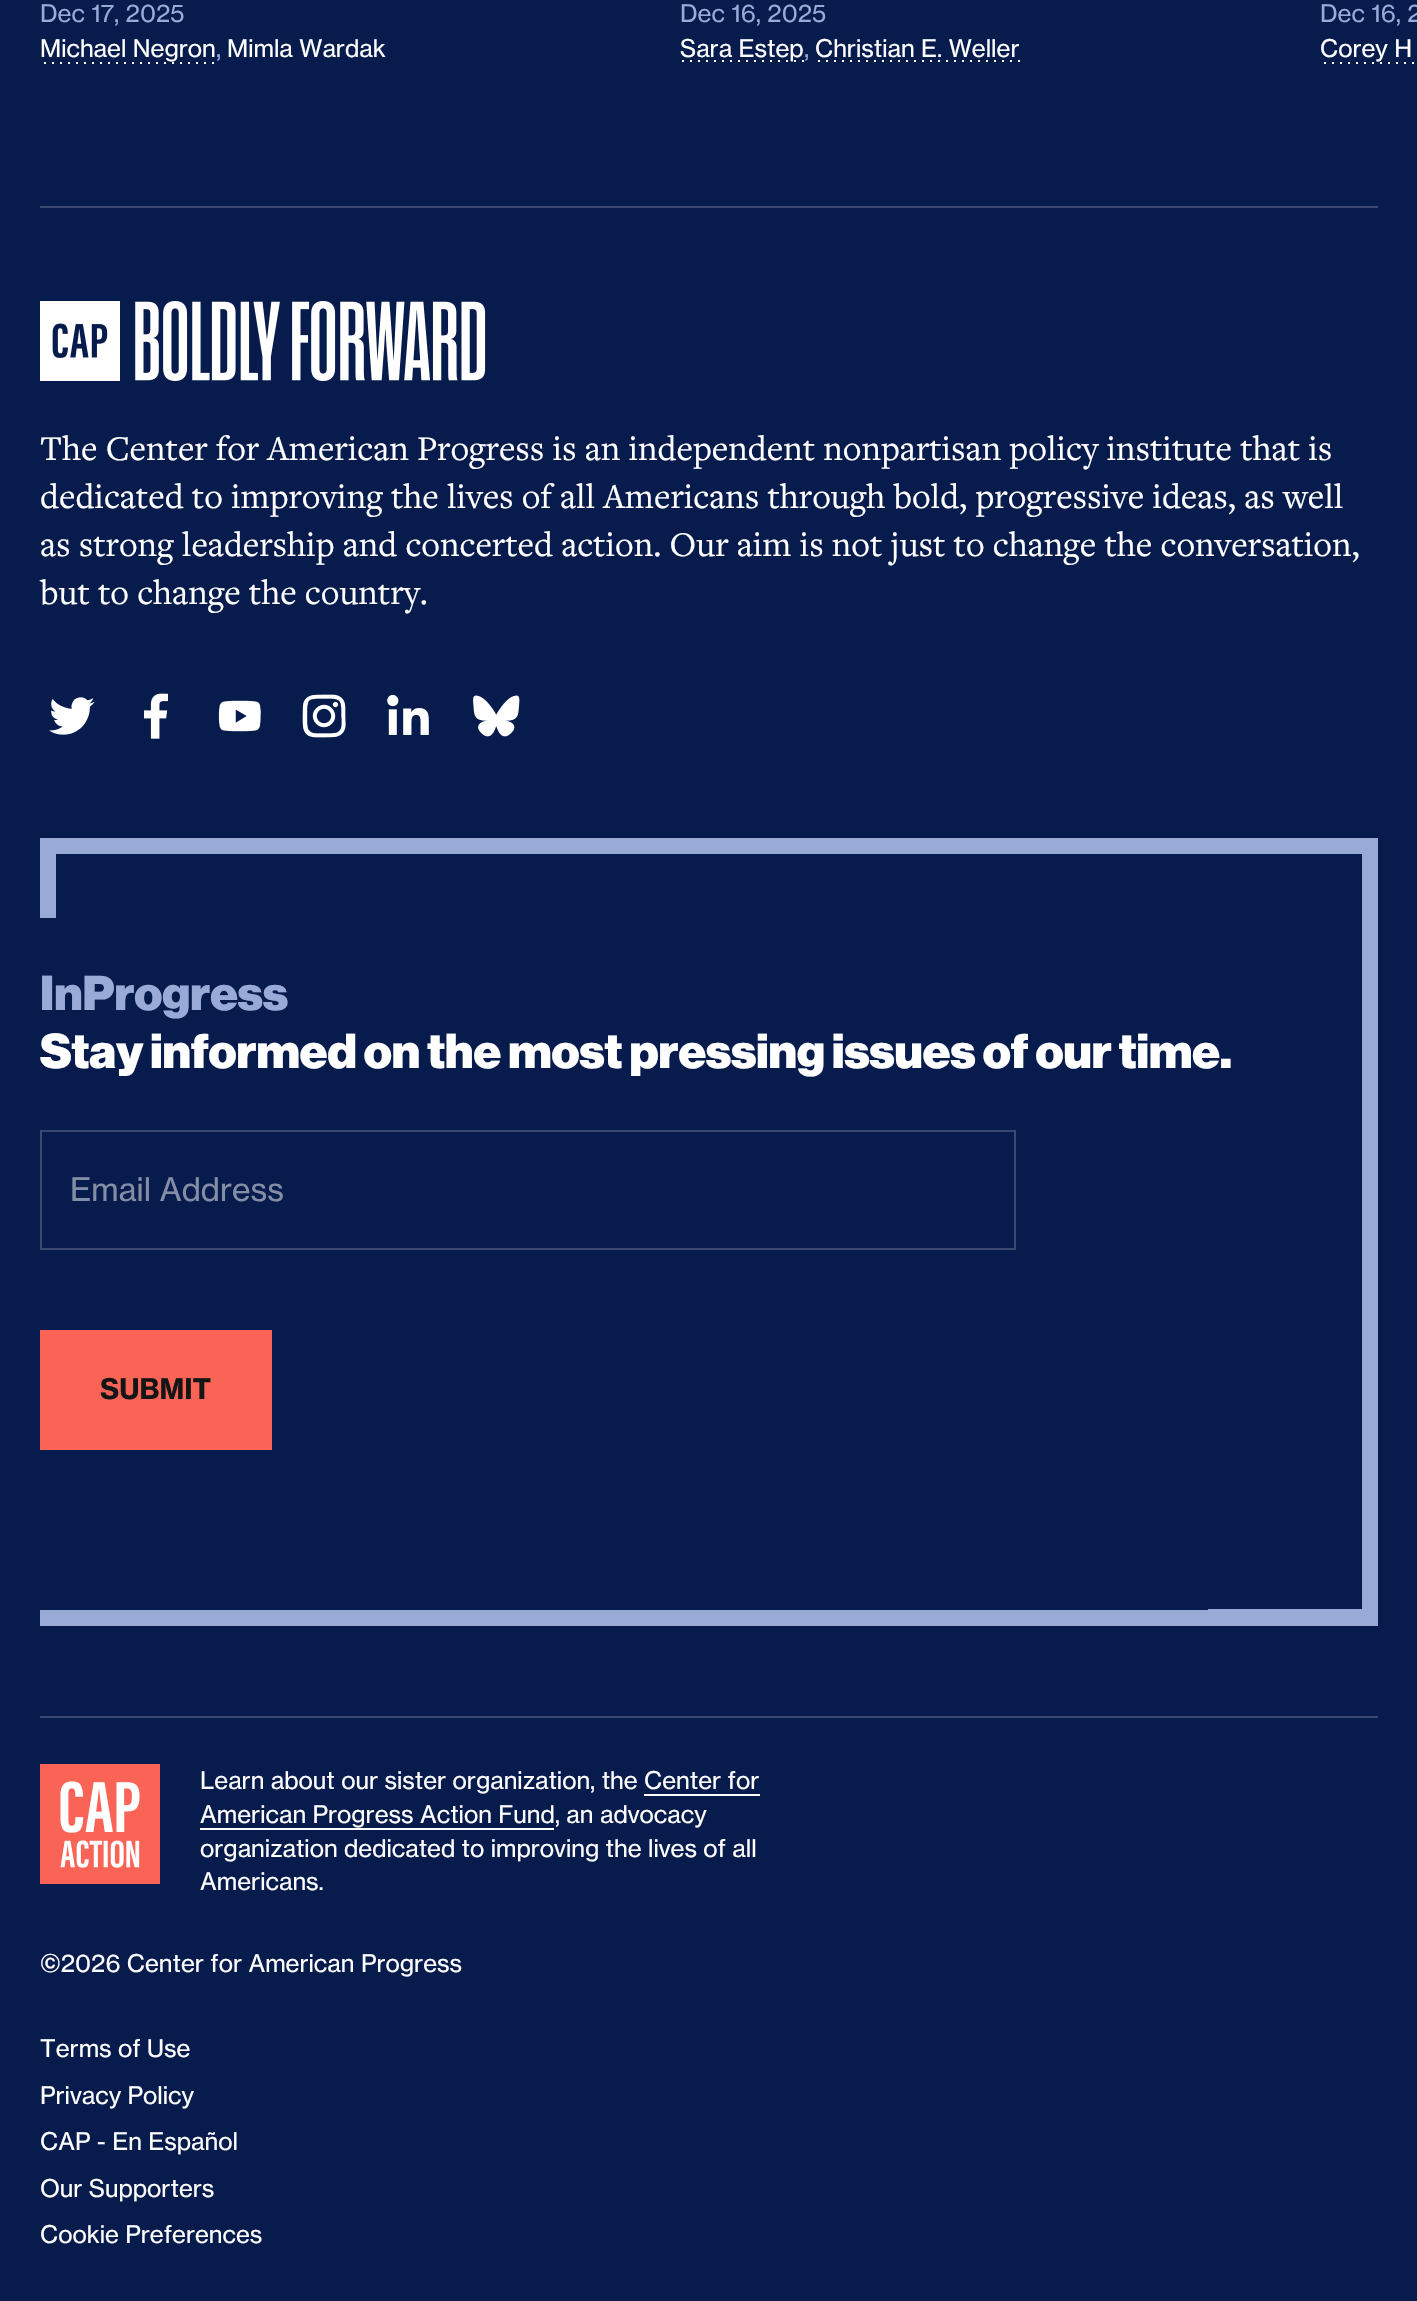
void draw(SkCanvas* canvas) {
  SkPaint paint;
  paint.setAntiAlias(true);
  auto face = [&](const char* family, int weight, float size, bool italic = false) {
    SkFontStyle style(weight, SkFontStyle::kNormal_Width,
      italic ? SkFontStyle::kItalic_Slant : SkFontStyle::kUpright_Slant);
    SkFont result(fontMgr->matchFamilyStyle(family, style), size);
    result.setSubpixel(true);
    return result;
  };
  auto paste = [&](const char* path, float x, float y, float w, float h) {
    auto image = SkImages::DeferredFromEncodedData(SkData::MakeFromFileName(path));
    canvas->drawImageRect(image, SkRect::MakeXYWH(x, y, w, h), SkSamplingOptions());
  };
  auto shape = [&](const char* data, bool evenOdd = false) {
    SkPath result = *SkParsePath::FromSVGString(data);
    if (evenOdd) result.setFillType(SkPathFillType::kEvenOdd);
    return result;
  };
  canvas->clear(0xff081b4d);
  paste("img/1.png", 44, 62, 170, 2);
  {
    const struct { float x, y, w, h; SkColor color; } items[] = {
      {682, 60, 2, 2, 0xffffffff},
      {690, 60, 2, 2, 0xffffffff},
      {698, 60, 2, 2, 0xffffffff},
      {706, 60, 2, 2, 0xffffffff},
      {714, 60, 2, 2, 0xffffffff},
      {722, 60, 2, 2, 0xffffffff},
      {730, 60, 2, 2, 0xffffffff},
      {738, 60, 2, 2, 0xffffffff},
      {746, 60, 2, 2, 0xffffffff},
      {754, 60, 2, 2, 0xffffffff},
      {762, 60, 2, 2, 0xffffffff},
      {770, 60, 2, 2, 0xffffffff},
      {778, 60, 2, 2, 0xffffffff},
      {786, 60, 2, 2, 0xffffffff},
      {794, 60, 2, 2, 0xffffffff},
      {802, 60, 2, 2, 0xffffffff},
    };
    for (auto [x, y, w, h, color] : items) {
      paint.setColor(color);
      canvas->drawRect(SkRect::MakeXYWH(x, y, w, h), paint);
    }
  }
  paste("img/2.png", 818, 60, 202, 2);
  {
    const struct { float x, y, w, h; SkColor color; } items[] = {
      {1324, 62, 2, 2, 0xffffffff},
      {1332, 62, 2, 2, 0xffffffff},
      {1340, 62, 2, 2, 0xffffffff},
      {1348, 62, 2, 2, 0xffffffff},
      {1356, 62, 2, 2, 0xffffffff},
      {1364, 62, 2, 2, 0xffffffff},
      {1372, 62, 2, 2, 0xffffffff},
      {1380, 62, 2, 2, 0xffffffff},
      {1388, 62, 2, 2, 0xffffffff},
      {1396, 62, 2, 2, 0xffffffff},
      {1404, 62, 2, 2, 0xffffffff},
      {1412, 62, 2, 2, 0xffffffff},
      {40, 206, 1338, 2, 0xff394971},
    };
    for (auto [x, y, w, h, color] : items) {
      paint.setColor(color);
      canvas->drawRect(SkRect::MakeXYWH(x, y, w, h), paint);
    }
  }
  paste("img/3.png", 40, 301, 446, 80);
  paste("img/4.png", 49, 697, 46, 38);
  paste("img/5.png", 144, 693, 24, 46);
  paste("img/6.png", 218, 700, 43, 32);
  paste("img/7.png", 302, 694, 44, 44);
  paste("img/8.png", 387, 694, 42, 41);
  paste("img/9.png", 473, 695, 47, 42);
  canvas->save();
  canvas->clipRect(SkRect::MakeXYWH(40, 838, 1338, 788));
  paint.setStroke(true);
  paint.setStrokeWidth(32);
  paint.setStrokeCap(SkPaint::kSquare_Cap);
  paint.setColor(0xff99aad6);
  canvas->drawPath(shape("M40 1586V838H1378V1625H40"), paint);
  canvas->restore();
  paint.setStroke(false);
  paint.setColor(0xff081b4d);
  canvas->drawRect(SkRect::MakeXYWH(40, 918, 16, 164), paint);
  canvas->drawRect(SkRect::MakeXYWH(40, 1082, 1168, 528), paint);
  paint.setStroke(true);
  paint.setStrokeWidth(2);
  paint.setStrokeCap(SkPaint::kButt_Cap);
  paint.setColor(0xff394971);
  canvas->drawRect(SkRect::MakeXYWH(41, 1131, 974, 118), paint);
  paint.setStroke(false);
  {
    const struct { float x, y, w, h; SkColor color; } items[] = {
      {40, 1330, 232, 120, 0xfffa6457},
      {40, 1716, 1338, 2, 0xff394971},
      {40, 1764, 120, 120, 0xfffa6457},
    };
    for (auto [x, y, w, h, color] : items) {
      paint.setColor(color);
      canvas->drawRect(SkRect::MakeXYWH(x, y, w, h), paint);
    }
  }
  paste("img/10.png", 60, 1781, 80, 87);
  paint.setColor(0xffffffff);
  canvas->drawRect(SkRect::MakeXYWH(644, 1794, 116, 2), paint);
  canvas->drawRect(SkRect::MakeXYWH(200, 1828, 354, 2), paint);
  auto f0 = face("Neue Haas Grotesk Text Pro", 400, 24);
  paint.setColor(0xff99aad6);
  canvas->drawString("Dec 17, 2025", 40, 22, f0, paint);
  paint.setColor(0xffffffff);
  canvas->drawString("Michael Negron", 40, 57, f0, paint);
  paint.setColor(0xff99aad6);
  canvas->drawString(",", 216, 57, f0, paint);
  paint.setColor(0xffffffff);
  canvas->drawString("Mimla Wardak", 227, 57, f0, paint);
  paint.setColor(0xff99aad6);
  canvas->drawString("Dec 16, 2025", 680, 22, f0, paint);
  paint.setColor(0xffffffff);
  canvas->drawString("Sara Estep", 680, 57, f0, paint);
  paint.setColor(0xff99aad6);
  canvas->drawString(",", 804, 57, f0, paint);
  paint.setColor(0xffffffff);
  canvas->drawString("Christian E. Weller", 815, 57, f0, paint);
  paint.setColor(0xff99aad6);
  canvas->drawString("Dec 16, 2", 1320, 22, f0, paint);
  paint.setColor(0xffffffff);
  canvas->drawString("Corey H", 1320, 57, f0, paint);
  auto f1 = face("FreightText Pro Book", 400, 36);
  {
    const struct { const char* s; float x, y; } items[] = {
      {"The Center for American Progress is an independent nonpartisan policy institute that is", 40, 460},
      {"dedicated to improving the lives of all Americans through bold, progressive ideas, as well", 40, 508},
      {"as strong leadership and concerted action. Our aim is not just to change the conversation,", 40, 556},
      {"but to change the country.", 40, 604},
    };
    for (auto [s, x, y] : items) {
      canvas->drawString(s, x, y, f1, paint);
    }
  }
  auto f2 = face("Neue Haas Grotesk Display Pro", 900, 48);
  paint.setColor(0xff99aad6);
  canvas->drawString("InProgress", 40, 1010, f2, paint);
  paint.setColor(0xffffffff);
  canvas->drawString("Stay informed on the most pressing issues of our time.", 40, 1068, f2, paint);
  auto f3 = face("Neue Haas Grotesk Text Pro", 400, 32);
  paint.setColor(0xff848da6);
  canvas->drawString("Email Address", 70, 1201, f3, paint);
  auto f4 = face("Neue Haas Grotesk Text Pro", 700, 28);
  paint.setColor(0xff151515);
  canvas->drawString("SUBMIT", 100, 1399, f4, paint);
  paint.setColor(0xffffffff);
  {
    const struct { const char* s; float x, y; } items[] = {
      {"Learn about our sister organization, the Center for", 200, 1789},
      {"American Progress Action Fund, an advocacy", 200, 1823},
      {"organization dedicated to improving the lives of all", 200, 1857},
      {"Americans.", 200, 1890},
      {"©2026 Center for American Progress", 40, 1972},
      {"Terms of Use", 40, 2057},
      {"Privacy Policy", 40, 2104},
      {"CAP - En Español", 40, 2150},
      {"Our Supporters", 40, 2197},
      {"Cookie Preferences", 40, 2243},
    };
    for (auto [s, x, y] : items) {
      canvas->drawString(s, x, y, f0, paint);
    }
  }
}
